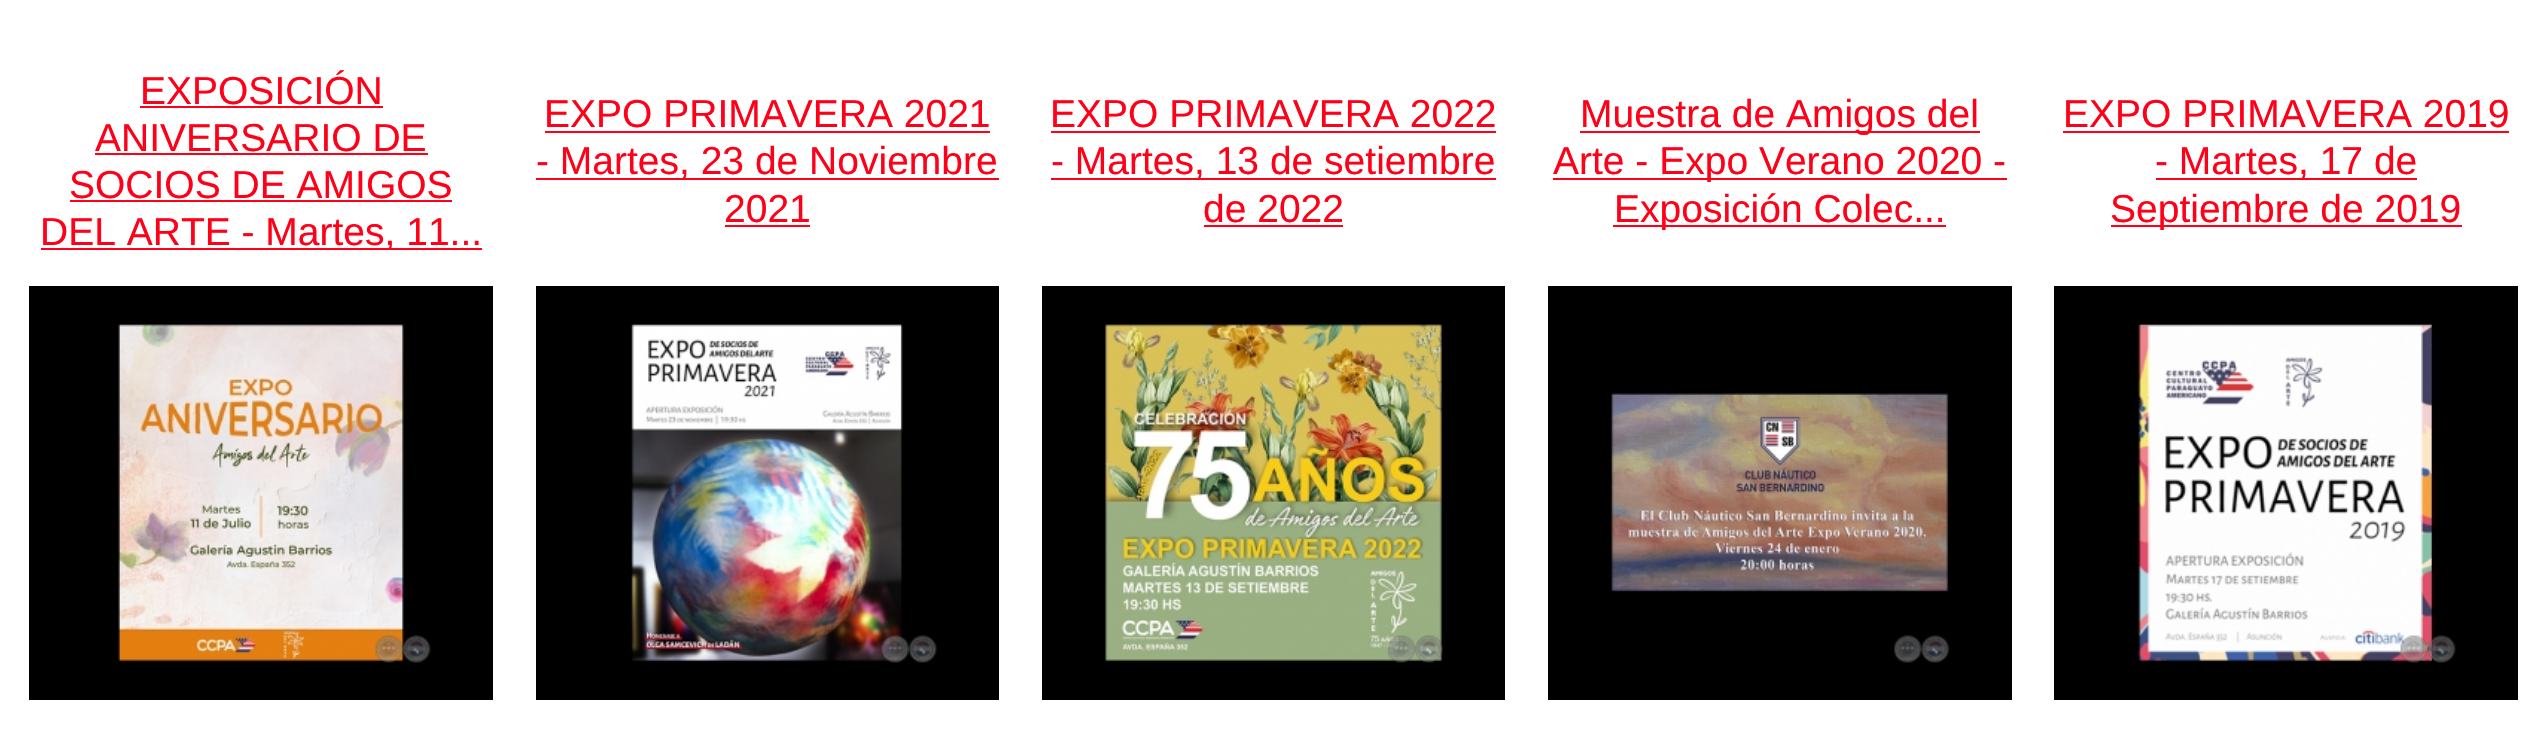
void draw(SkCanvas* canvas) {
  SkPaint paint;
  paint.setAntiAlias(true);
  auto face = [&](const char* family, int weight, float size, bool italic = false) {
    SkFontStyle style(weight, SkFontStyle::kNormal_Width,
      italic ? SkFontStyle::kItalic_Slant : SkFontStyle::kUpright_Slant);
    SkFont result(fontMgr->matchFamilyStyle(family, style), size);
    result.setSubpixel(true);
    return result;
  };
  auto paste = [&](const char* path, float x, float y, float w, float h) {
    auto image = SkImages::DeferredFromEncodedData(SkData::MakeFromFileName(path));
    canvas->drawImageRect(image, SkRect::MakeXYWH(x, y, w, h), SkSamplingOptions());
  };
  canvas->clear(0xffffffff);
  {
    const struct { float x, y, w, h; SkColor color; } items[] = {
      {140, 106, 243, 2, 0xffff0018},
      {95, 153, 333, 2, 0xffff0018},
      {70, 200, 382, 2, 0xffff0018},
      {41, 248, 441, 2, 0xffff0018},
      {29, 286, 464, 414, 0xff000000},
    };
    for (auto [x, y, w, h, color] : items) {
      paint.setColor(color);
      canvas->drawRect(SkRect::MakeXYWH(x, y, w, h), paint);
    }
  }
  paste("img/1.png", 117, 324, 314, 339);
  {
    const struct { float x, y, w, h; SkColor color; } items[] = {
      {545, 131, 445, 2, 0xffff0018},
      {536, 178, 463, 2, 0xffff0018},
      {725, 225, 85, 2, 0xffff0018},
      {536, 286, 463, 414, 0xff000000},
    };
    for (auto [x, y, w, h, color] : items) {
      paint.setColor(color);
      canvas->drawRect(SkRect::MakeXYWH(x, y, w, h), paint);
    }
  }
  paste("img/2.png", 631, 324, 306, 339);
  {
    const struct { float x, y, w, h; SkColor color; } items[] = {
      {1051, 131, 445, 2, 0xffff0018},
      {1051, 178, 445, 2, 0xffff0018},
      {1204, 225, 139, 2, 0xffff0018},
      {1042, 286, 463, 414, 0xff000000},
    };
    for (auto [x, y, w, h, color] : items) {
      paint.setColor(color);
      canvas->drawRect(SkRect::MakeXYWH(x, y, w, h), paint);
    }
  }
  paste("img/3.png", 1104, 323, 340, 340);
  {
    const struct { float x, y, w, h; SkColor color; } items[] = {
      {1580, 131, 400, 2, 0xffff0018},
      {1553, 178, 454, 2, 0xffff0018},
      {1613, 225, 333, 2, 0xffff0018},
      {1548, 286, 464, 414, 0xff000000},
    };
    for (auto [x, y, w, h, color] : items) {
      paint.setColor(color);
      canvas->drawRect(SkRect::MakeXYWH(x, y, w, h), paint);
    }
  }
  paste("img/4.png", 1611, 392, 339, 271);
  {
    const struct { float x, y, w, h; SkColor color; } items[] = {
      {2063, 131, 446, 2, 0xffff0018},
      {2156, 178, 261, 2, 0xffff0018},
      {2111, 225, 351, 2, 0xffff0018},
      {2054, 286, 464, 414, 0xff000000},
    };
    for (auto [x, y, w, h, color] : items) {
      paint.setColor(color);
      canvas->drawRect(SkRect::MakeXYWH(x, y, w, h), paint);
    }
  }
  paste("img/5.png", 2137, 323, 319, 340);
  auto f0 = face("Liberation Sans", 400, 39);
  paint.setColor(0xffff0018);
  {
    const struct { const char* s; float x, y; } items[] = {
      {"EXPOSICIÓN", 140, 104},
      {"ANIVERSARIO DE", 95, 151},
      {"SOCIOS DE AMIGOS", 69, 198},
      {"DEL ARTE - Martes, 11...", 40, 245},
      {"EXPO PRIMAVERA 2021", 544, 127},
      {"- Martes, 23 de Noviembre", 536, 174},
      {"2021", 724, 222},
      {"EXPO PRIMAVERA 2022", 1050, 127},
      {"- Martes, 13 de setiembre", 1051, 174},
      {"de 2022", 1203, 222},
      {"Muestra de Amigos del", 1580, 127},
      {"Arte - Expo Verano 2020 -", 1553, 174},
      {"Exposición Colec...", 1614, 222},
      {"EXPO PRIMAVERA 2019", 2063, 127},
      {"- Martes, 17 de", 2155, 174},
      {"Septiembre de 2019", 2110, 222},
    };
    for (auto [s, x, y] : items) {
      canvas->drawString(s, x, y, f0, paint);
    }
  }
}
